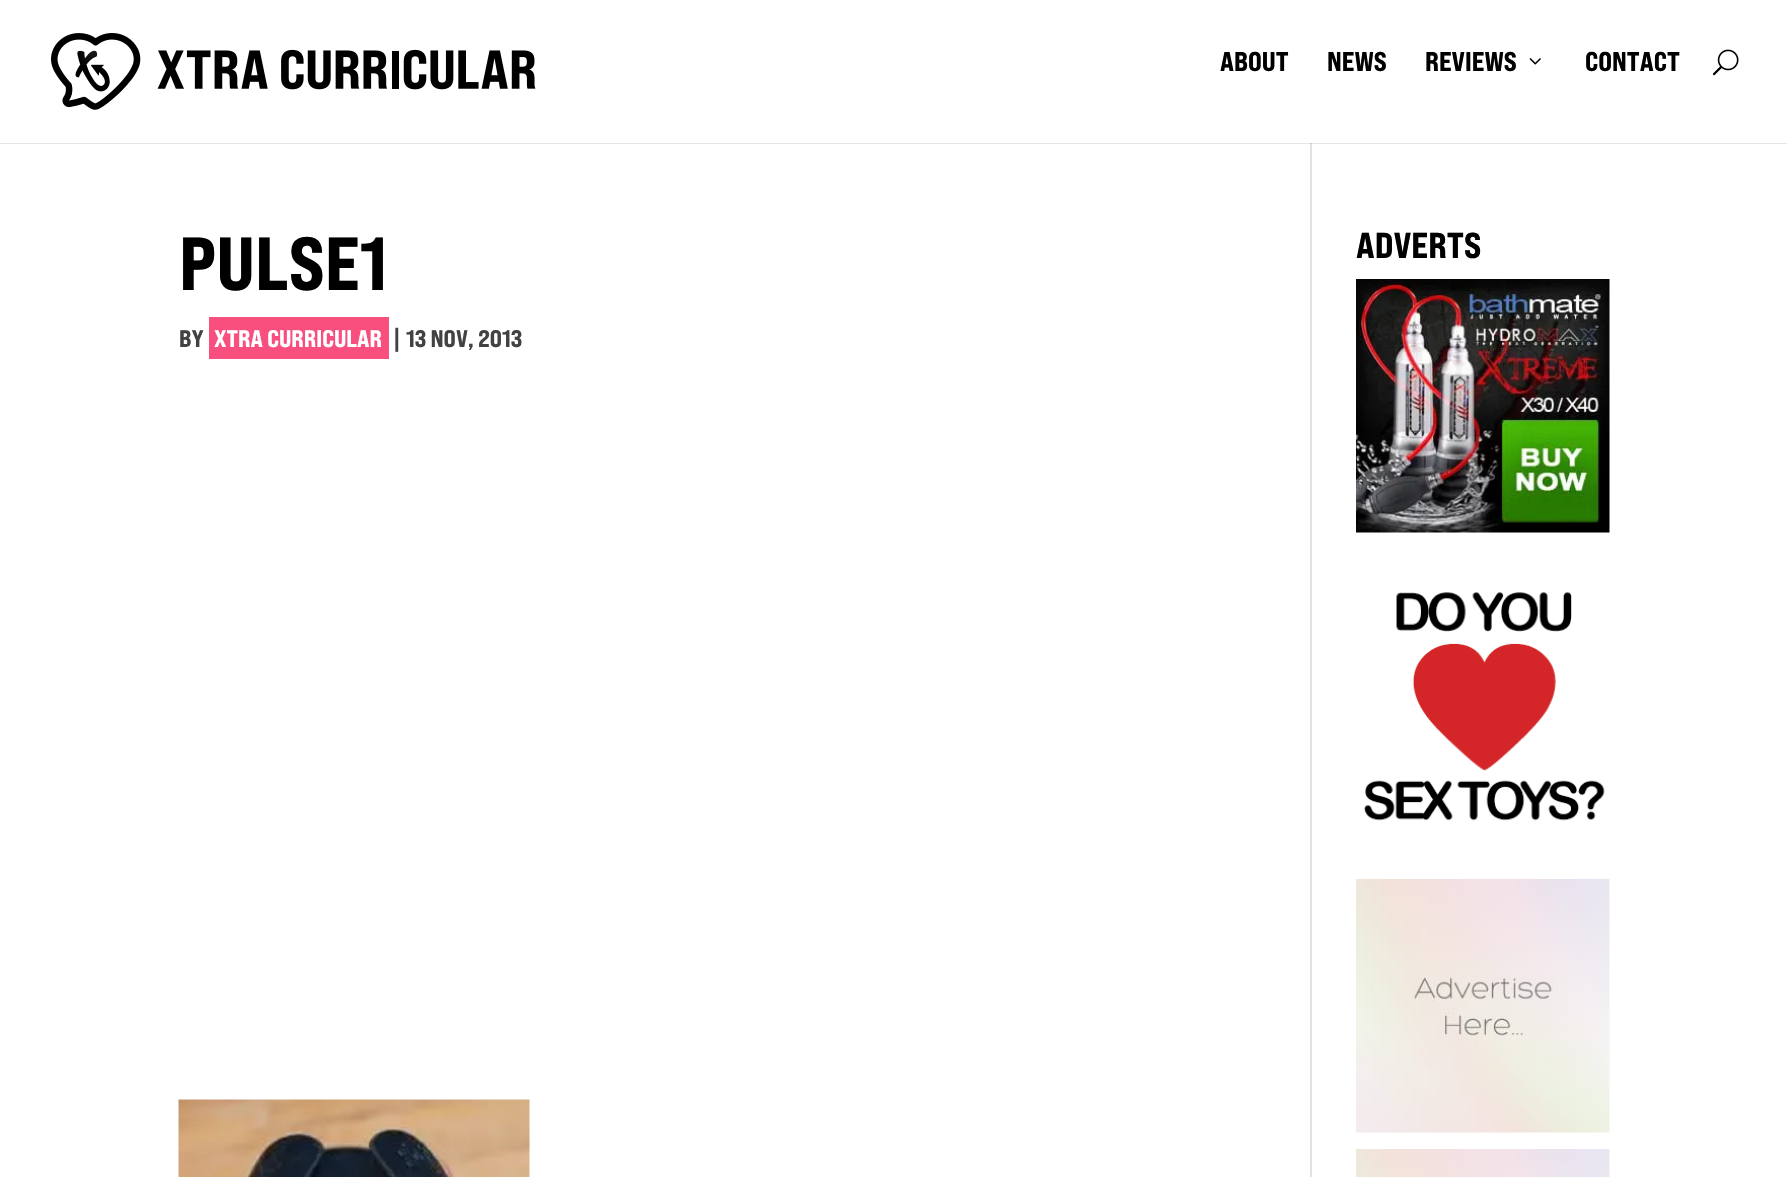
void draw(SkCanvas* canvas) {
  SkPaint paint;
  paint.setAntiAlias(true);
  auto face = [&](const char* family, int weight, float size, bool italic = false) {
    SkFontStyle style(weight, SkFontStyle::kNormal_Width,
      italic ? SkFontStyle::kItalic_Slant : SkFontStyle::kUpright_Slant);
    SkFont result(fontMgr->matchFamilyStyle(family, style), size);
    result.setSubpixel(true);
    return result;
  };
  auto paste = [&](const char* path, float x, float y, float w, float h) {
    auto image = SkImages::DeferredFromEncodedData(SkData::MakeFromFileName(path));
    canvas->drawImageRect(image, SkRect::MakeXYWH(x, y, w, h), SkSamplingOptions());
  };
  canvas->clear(0xffffffff);
  {
    const struct { float x, y, w, h; SkColor color; } items[] = {
      {0, 143, 1787, 1, 0xffe6e6e6},
      {1310, 141, 2, 1036, 0xffe2e2e2},
      {1310, 141, 2, 2, 0xffffffff},
    };
    for (auto [x, y, w, h, color] : items) {
      paint.setColor(color);
      canvas->drawRect(SkRect::MakeXYWH(x, y, w, h), paint);
    }
  }
  paste("img/1.png", 51, 33, 485, 77);
  paste("img/2.png", 1529, 58, 12, 7);
  paste("img/3.png", 1712, 49, 27, 27);
  paint.setColor(0xffcbcbcb);
  canvas->drawRect(SkRect::MakeXYWH(1310, 143, 2, 1), paint);
  paint.setColor(0xfff94f7e);
  canvas->drawRect(SkRect::MakeXYWH(209, 317, 180, 42), paint);
  paste("img/4.png", 178, 1099, 352, 78);
  paste("img/5.png", 1356, 279, 254, 254);
  paste("img/6.png", 1364, 592, 241, 229);
  paste("img/7.png", 1356, 879, 254, 254);
  paste("img/8.png", 1356, 1149, 254, 28);
  auto f0 = face("Bebas Neue", 800, 27);
  paint.setColor(0xff000000);
  {
    const struct { const char* s; float x, y; } items[] = {
      {"ABOUT", 1220, 71},
      {"NEWS", 1327, 71},
      {"REVIEWS", 1425, 71},
      {"CONTACT", 1585, 71},
    };
    for (auto [s, x, y] : items) {
      canvas->drawString(s, x, y, f0, paint);
    }
  }
  auto f1 = face("Bebas Neue", 800, 75);
  canvas->drawString("PULSE1", 179, 290, f1, paint);
  auto f2 = face("Bebas Neue", 800, 24);
  paint.setColor(0xff424242);
  canvas->drawString("BY", 179, 347, f2, paint);
  paint.setColor(0xffffffff);
  canvas->drawString("XTRA CURRICULAR", 214, 347, f2, paint);
  paint.setColor(0xff424242);
  canvas->drawString("| 13 NOV, 2013", 392, 347, f2, paint);
  auto f3 = face("Bebas Neue", 800, 36);
  paint.setColor(0xff000000);
  canvas->drawString("ADVERTS", 1356, 258, f3, paint);
}
